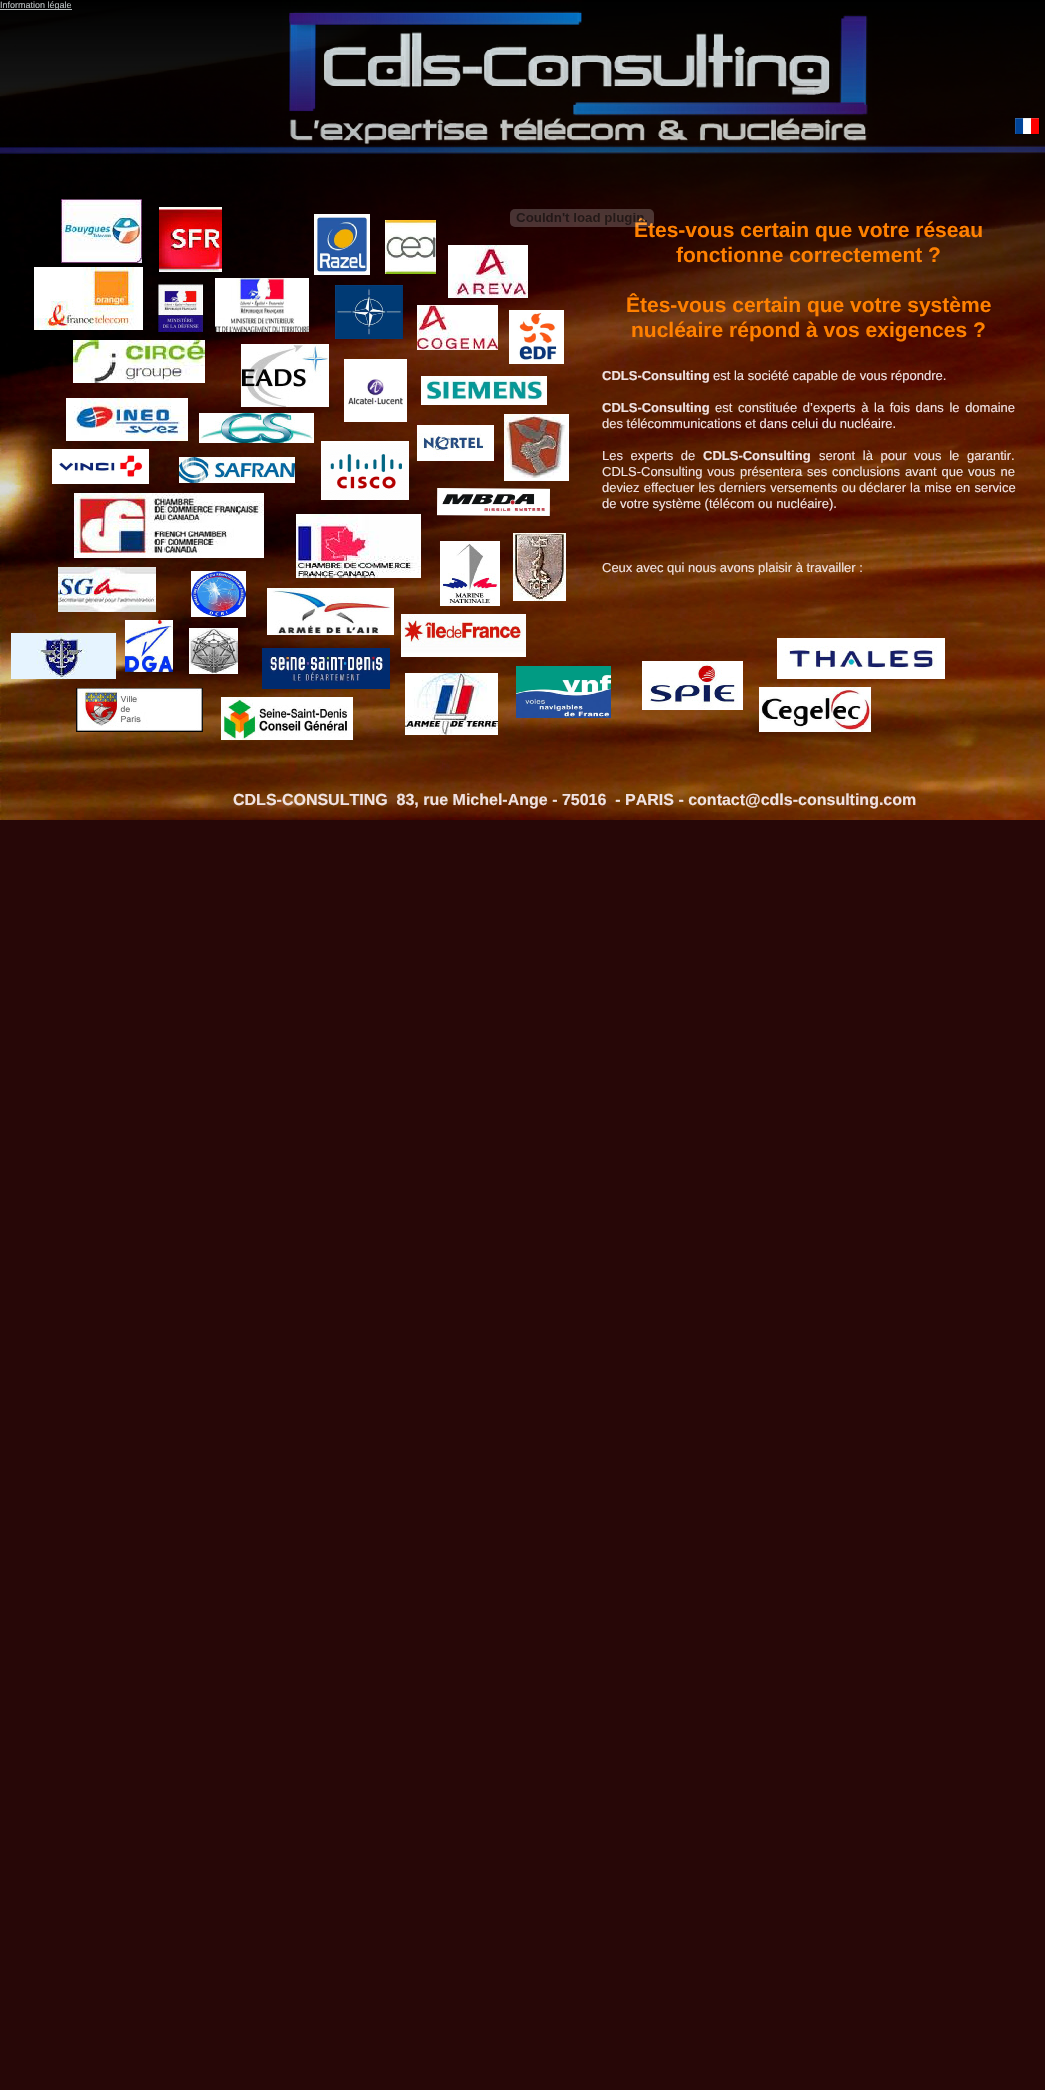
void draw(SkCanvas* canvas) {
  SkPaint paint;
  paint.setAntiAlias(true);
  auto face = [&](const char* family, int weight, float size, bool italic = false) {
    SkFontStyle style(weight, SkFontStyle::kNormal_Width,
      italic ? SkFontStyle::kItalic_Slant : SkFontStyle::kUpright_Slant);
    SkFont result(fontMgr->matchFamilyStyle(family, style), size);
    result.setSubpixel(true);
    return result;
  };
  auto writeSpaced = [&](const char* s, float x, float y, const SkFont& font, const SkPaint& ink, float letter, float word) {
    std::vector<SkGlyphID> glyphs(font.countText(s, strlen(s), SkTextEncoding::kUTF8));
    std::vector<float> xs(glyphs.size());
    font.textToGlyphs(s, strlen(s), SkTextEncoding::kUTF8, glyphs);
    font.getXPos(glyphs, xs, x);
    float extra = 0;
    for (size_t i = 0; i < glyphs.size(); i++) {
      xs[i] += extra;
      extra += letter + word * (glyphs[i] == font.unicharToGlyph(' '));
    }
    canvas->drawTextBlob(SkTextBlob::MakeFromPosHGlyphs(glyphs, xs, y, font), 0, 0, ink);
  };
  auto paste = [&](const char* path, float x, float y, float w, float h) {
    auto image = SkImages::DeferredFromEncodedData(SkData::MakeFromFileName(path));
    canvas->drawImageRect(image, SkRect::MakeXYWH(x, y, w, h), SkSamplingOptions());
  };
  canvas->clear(0xff270707);
  paste("img/2.png", 0, 6, 1045, 814);
  paste("img/1.png", 0, 0, 1045, 339);
  paint.setColor(0xffb9c0c2);
  canvas->drawRect(SkRect::MakeXYWH(0, 9, 72, 1), paint);
  paste("img/3.png", 1015, 118, 25, 17);
  paste("img/4.png", 61, 199, 81, 64);
  paste("img/5.png", 159, 207, 63, 65);
  paste("img/6.png", 314, 214, 56, 61);
  paste("img/7.png", 385, 220, 51, 54);
  paste("img/8.png", 448, 245, 80, 53);
  paste("img/10.png", 34, 267, 109, 63);
  paste("img/11.png", 158, 284, 45, 48);
  paste("img/12.png", 215, 278, 94, 54);
  paste("img/13.png", 335, 285, 68, 54);
  paste("img/14.png", 417, 305, 81, 45);
  paste("img/15.png", 509, 310, 55, 54);
  paste("img/16.png", 73, 340, 132, 43);
  paste("img/17.png", 241, 344, 88, 63);
  paste("img/18.png", 344, 359, 63, 63);
  paste("img/19.png", 421, 376, 126, 29);
  paste("img/20.png", 66, 398, 122, 43);
  paste("img/21.png", 199, 413, 115, 30);
  paste("img/22.png", 321, 441, 88, 59);
  paste("img/23.png", 417, 425, 77, 36);
  paste("img/24.png", 504, 414, 65, 67);
  paste("img/25.png", 52, 449, 97, 35);
  paste("img/26.png", 179, 457, 116, 26);
  paste("img/27.png", 74, 493, 190, 65);
  paste("img/28.png", 296, 514, 125, 64);
  paste("img/29.png", 437, 488, 113, 28);
  paste("img/30.png", 58, 567, 98, 45);
  paste("img/31.png", 191, 571, 55, 46);
  paste("img/32.png", 267, 588, 127, 47);
  paste("img/33.png", 440, 541, 60, 65);
  paste("img/34.png", 513, 533, 53, 68);
  paste("img/35.png", 11, 633, 105, 46);
  paste("img/36.png", 125, 620, 48, 52);
  paste("img/37.png", 189, 628, 49, 46);
  paste("img/38.png", 262, 648, 128, 41);
  paste("img/39.png", 401, 614, 125, 43);
  paste("img/40.png", 516, 666, 95, 52);
  paste("img/41.png", 642, 661, 101, 49);
  paste("img/42.png", 777, 638, 168, 41);
  paste("img/43.png", 76, 688, 127, 44);
  paste("img/44.png", 221, 697, 132, 43);
  paste("img/45.png", 405, 673, 93, 62);
  paste("img/46.png", 759, 687, 112, 45);
  auto f0 = face("Liberation Sans", 400, 9);
  canvas->drawString("Information légale", 0, 8, f0, paint);
  auto f1 = face("Liberation Sans", 700, 21);
  paint.setColor(0xffff8000);
  canvas->drawString("Êtes-vous certain que votre réseau", 634, 237, f1, paint);
  paste("img/9.png", 510, 209, 144, 18);
  {
    const struct { const char* s; float x, y; } items[] = {
      {"fonctionne correctement ?", 676, 262},
      {"Êtes-vous certain que votre système", 626, 312},
      {"nucléaire répond à vos exigences ?", 631, 337},
    };
    for (auto [s, x, y] : items) {
      canvas->drawString(s, x, y, f1, paint);
    }
  }
  auto f2 = face("Liberation Sans", 700, 13);
  paint.setColor(0xfff0e2e2);
  canvas->drawString("CDLS-Consulting", 602, 380, f2, paint);
  auto f3 = face("Liberation Sans", 400, 13);
  canvas->drawString("est la société capable de vous répondre.", 713, 380, f3, paint);
  canvas->drawString("CDLS-Consulting", 602, 412, f2, paint);
  writeSpaced("est constituée d’experts à la fois dans le domaine", 715, 412, f3, paint, 0, 2);
  canvas->drawString("des télécommunications et dans celui du nucléaire.", 602, 428, f3, paint);
  writeSpaced("Les experts de", 602, 460, f3, paint, 0, 4);
  canvas->drawString("CDLS-Consulting", 703, 460, f2, paint);
  writeSpaced("seront là pour vous le garantir.", 819, 460, f3, paint, 0, 4);
  canvas->drawString("CDLS-", 602, 476, f3, paint);
  writeSpaced("Consulting vous", 641, 476, f3, paint, 0, 1.25f);
  writeSpaced("présentera ses conclusions avant que vous ne", 740, 476, f3, paint, 0, 1.25f);
  writeSpaced("deviez effectuer les derniers versements ou", 602, 492, f3, paint, 0, 0.5f);
  writeSpaced("déclarer la mise en service", 859, 492, f3, paint, 0, 0.5f);
  canvas->drawString("de votre système (télécom ou nucléaire).", 602, 508, f3, paint);
  canvas->drawString("Ceux avec qui nous avons plaisir à travailler :", 602, 572, f3, paint);
  auto f4 = face("Liberation Sans", 700, 16);
  canvas->drawString("CDLS-CONSULTING  83, rue Michel-Ange - 75016  - PARIS - contact@cdls-consulting.com", 233, 805, f4, paint);
}
